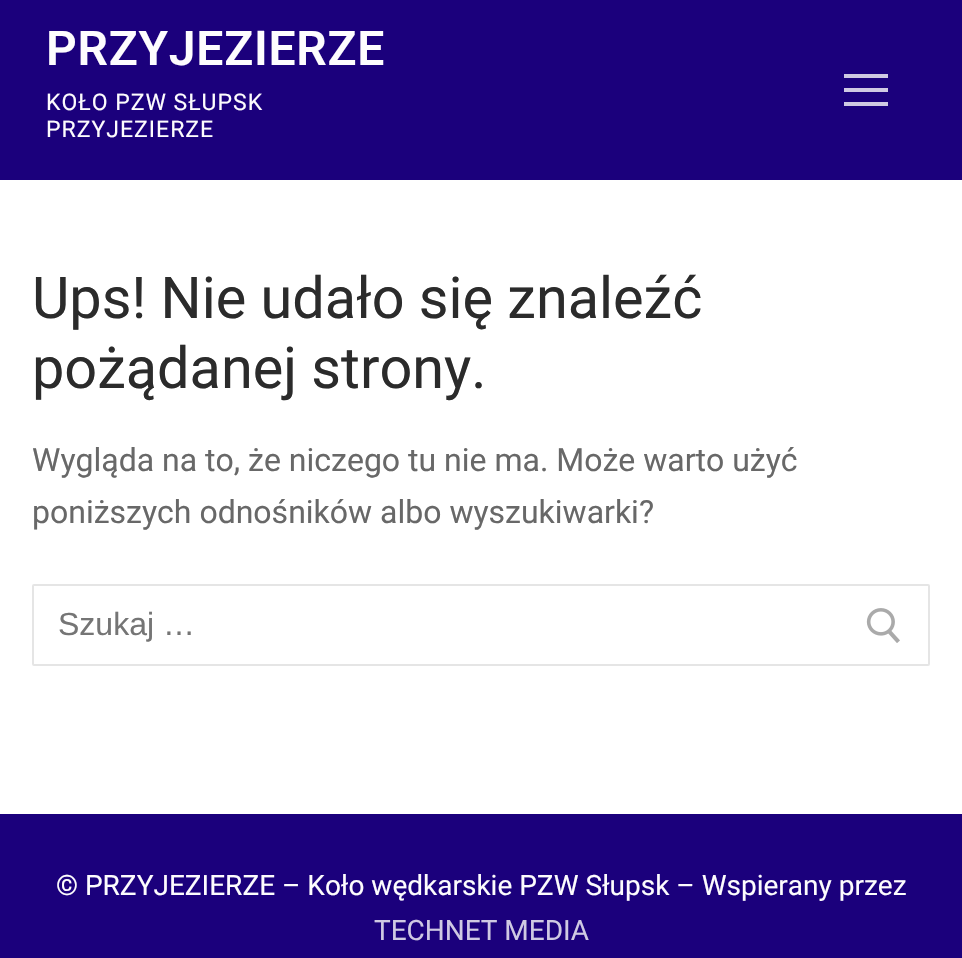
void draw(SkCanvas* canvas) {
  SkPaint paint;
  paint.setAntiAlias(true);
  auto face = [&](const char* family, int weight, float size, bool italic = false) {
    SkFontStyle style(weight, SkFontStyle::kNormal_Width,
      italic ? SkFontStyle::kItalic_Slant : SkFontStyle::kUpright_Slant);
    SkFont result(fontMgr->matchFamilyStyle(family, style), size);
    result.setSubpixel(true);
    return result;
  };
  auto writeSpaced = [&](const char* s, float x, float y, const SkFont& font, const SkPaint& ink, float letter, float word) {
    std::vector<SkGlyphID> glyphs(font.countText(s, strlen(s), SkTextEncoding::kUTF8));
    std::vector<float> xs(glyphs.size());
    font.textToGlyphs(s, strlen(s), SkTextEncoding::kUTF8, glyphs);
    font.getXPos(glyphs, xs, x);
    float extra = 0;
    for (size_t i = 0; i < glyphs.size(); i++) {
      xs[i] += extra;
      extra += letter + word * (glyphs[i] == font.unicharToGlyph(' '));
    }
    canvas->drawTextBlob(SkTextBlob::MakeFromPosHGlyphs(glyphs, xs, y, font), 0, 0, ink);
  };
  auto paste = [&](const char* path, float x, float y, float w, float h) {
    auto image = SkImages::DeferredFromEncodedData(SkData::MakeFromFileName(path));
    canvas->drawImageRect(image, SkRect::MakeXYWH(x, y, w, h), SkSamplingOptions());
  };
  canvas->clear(0xffffffff);
  {
    const struct { float x, y, w, h; SkColor color; } items[] = {
      {0, 0, 962, 180, 0xff1b007c},
      {844, 88, 44, 4, 0xffcfc9e3},
      {844, 74, 44, 4, 0xffcfc9e3},
      {844, 102, 44, 4, 0xffcfc9e3},
    };
    for (auto [x, y, w, h, color] : items) {
      paint.setColor(color);
      canvas->drawRect(SkRect::MakeXYWH(x, y, w, h), paint);
    }
  }
  paint.setStroke(true);
  paint.setStrokeWidth(2);
  paint.setColor(0xffe5e5e5);
  canvas->drawRoundRect(SkRect::MakeXYWH(33, 585, 896, 80), 1, 1, paint);
  paste("img/1.png", 866, 608, 34, 35);
  paint.setStroke(false);
  paint.setColor(0xff1b007c);
  canvas->drawRect(SkRect::MakeXYWH(0, 814, 962, 144), paint);
  auto f0 = face("Roboto", 600, 48);
  paint.setColor(0xfffdfcfe);
  writeSpaced("PRZYJEZIERZE", 46, 65, f0, paint, 0.75f, 0);
  auto f1 = face("Roboto", 400, 23);
  writeSpaced("KOŁO PZW SŁUPSK", 46, 110, f1, paint, 1, 0);
  writeSpaced("PRZYJEZIERZE", 46, 137, f1, paint, 1, 0);
  auto f2 = face("Roboto", 400, 57.6f);
  paint.setColor(0xff2b2b2b);
  canvas->drawString("Ups! Nie udało się znaleźć", 32, 318, f2, paint);
  canvas->drawString("pożądanej strony.", 32, 388, f2, paint);
  auto f3 = face("Roboto", 400, 32);
  paint.setColor(0xff686868);
  canvas->drawString("Wygląda na to, że niczego tu nie ma. Może warto użyć", 32, 471, f3, paint);
  canvas->drawString("poniższych odnośników albo wyszukiwarki?", 32, 523, f3, paint);
  auto f4 = face("Liberation Sans", 400, 32);
  paint.setColor(0xff757575);
  canvas->drawString("Szukaj …", 58, 635, f4, paint);
  auto f5 = face("Roboto", 400, 28);
  paint.setColor(0xfffdfcfe);
  canvas->drawString("© PRZYJEZIERZE – Koło wędkarskie PZW Słupsk – Wspierany przez", 56, 895, f5, paint);
  paint.setColor(0xffcfc9e3);
  canvas->drawString("TECHNET MEDIA", 374, 940, f5, paint);
}
